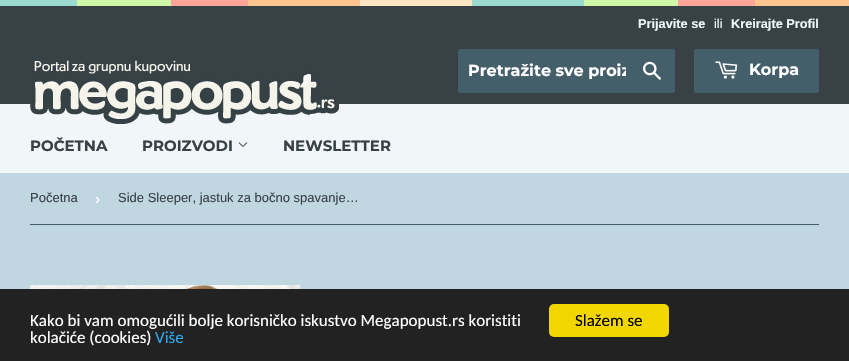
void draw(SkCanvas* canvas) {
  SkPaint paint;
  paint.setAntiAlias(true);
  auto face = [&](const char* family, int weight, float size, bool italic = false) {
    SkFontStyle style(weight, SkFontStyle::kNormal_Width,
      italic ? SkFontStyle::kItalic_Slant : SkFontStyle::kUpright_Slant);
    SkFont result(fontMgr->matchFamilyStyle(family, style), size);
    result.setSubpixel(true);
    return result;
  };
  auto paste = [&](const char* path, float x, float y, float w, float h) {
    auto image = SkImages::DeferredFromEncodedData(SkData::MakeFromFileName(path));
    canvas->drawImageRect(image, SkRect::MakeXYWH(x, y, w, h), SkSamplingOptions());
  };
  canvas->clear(0xffc0d6e1);
  paint.setColor(0xff374146);
  canvas->drawRect(SkRect::MakeXYWH(0, 6, 849, 98), paint);
  paste("img/1.png", 0, 0, 849, 6);
  paint.setColor(0xff445e6a);
  canvas->drawRoundRect(SkRect::MakeXYWH(458, 49, 217, 44), 2, 2, paint);
  paste("img/2.png", 643, 61, 18, 19);
  canvas->drawRoundRect(SkRect::MakeXYWH(694, 49, 125, 44), 2, 2, paint);
  paste("img/3.png", 715, 61, 23, 18);
  paint.setColor(0xfff1f6f8);
  canvas->drawRect(SkRect::MakeXYWH(0, 104, 849, 69), paint);
  paste("img/4.png", 30, 60, 309, 64);
  paste("img/5.png", 238, 142, 10, 5);
  paint.setColor(0xff445e6a);
  canvas->drawRect(SkRect::MakeXYWH(30, 224, 789, 1), paint);
  paste("img/6.png", 30, 285, 270, 4);
  paint.setColor(0xff222222);
  canvas->drawRect(SkRect::MakeXYWH(0, 289, 849, 72), paint);
  paint.setColor(0xfff1d600);
  canvas->drawRoundRect(SkRect::MakeXYWH(549, 304, 120, 33), 5, 5, paint);
  auto f0 = face("Liberation Sans", 700, 12.75f);
  paint.setColor(0xfff1f6f8);
  canvas->drawString("Prijavite se", 638, 28, f0, paint);
  auto f1 = face("Liberation Sans", 400, 12.75f);
  canvas->drawString("ili", 714, 28, f1, paint);
  canvas->drawString("Kreirajte Profil", 731, 28, f0, paint);
  canvas->save();
  canvas->clipRect(SkRect::MakeXYWH(468, 61, 158, 19));
  auto f2 = face("Montserrat", 100, 16);
  paint.setColor(0xffffffff);
  canvas->drawString("Pretražite sve proiz", 468, 76, f2, paint);
  canvas->restore();
  canvas->drawString("Korpa", 749, 75, f2, paint);
  auto f3 = face("Montserrat", 100, 15);
  paint.setColor(0xff374146);
  {
    const struct { const char* s; float x, y; } items[] = {
      {"POČETNA", 30, 151},
      {"PROIZVODI", 142, 151},
      {"NEWSLETTER", 283, 151},
    };
    for (auto [s, x, y] : items) {
      canvas->drawString(s, x, y, f3, paint);
    }
  }
  auto f4 = face("Liberation Sans", 400, 13);
  canvas->drawString("Početna", 30, 202, f4, paint);
  auto f5 = face("Liberation Sans", 400, 15);
  paint.setColor(0xffffffff);
  canvas->drawString("›", 95, 204, f5, paint);
  paint.setColor(0xff374146);
  canvas->drawString("Side Sleeper, jastuk za bočno spavanje…", 118, 202, f4, paint);
  auto f6 = face("Carlito", 400, 17);
  paint.setColor(0xffffffff);
  canvas->drawString("Kako bi vam omogućili bolje korisničko iskustvo Megapopust.rs koristiti", 30, 326, f6, paint);
  canvas->drawString("kolačiće (cookies)", 30, 343, f6, paint);
  paint.setColor(0xff31a8f0);
  canvas->drawString("Više", 155, 343, f6, paint);
  paint.setColor(0xff000000);
  canvas->drawString("Slažem se", 575, 326, f6, paint);
}
